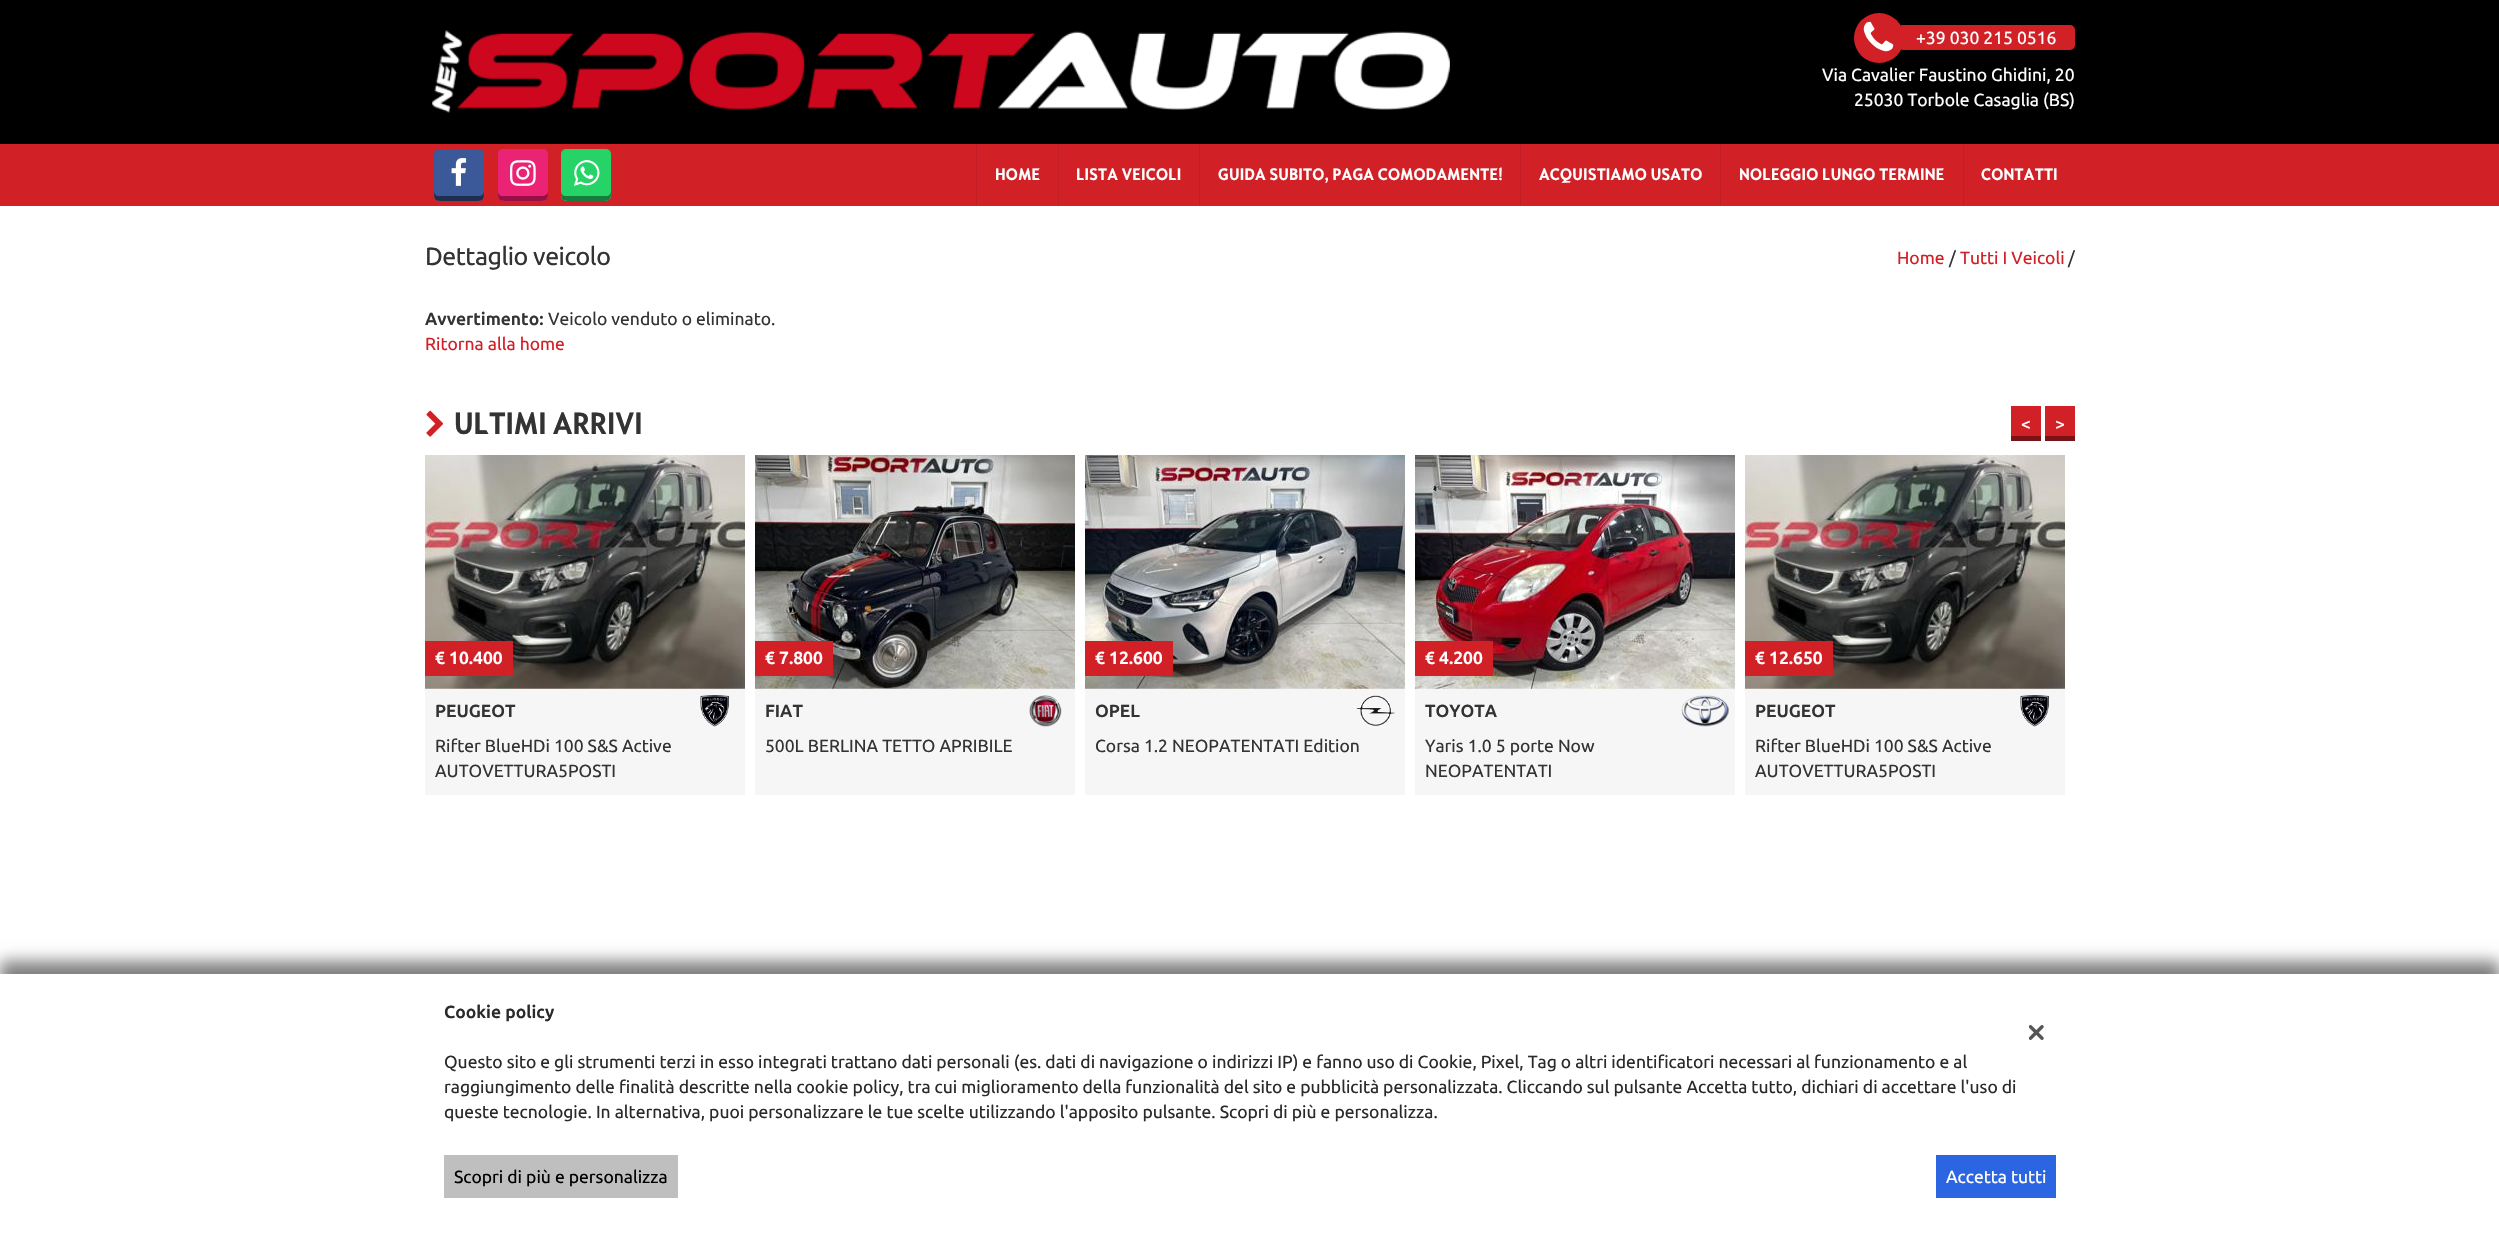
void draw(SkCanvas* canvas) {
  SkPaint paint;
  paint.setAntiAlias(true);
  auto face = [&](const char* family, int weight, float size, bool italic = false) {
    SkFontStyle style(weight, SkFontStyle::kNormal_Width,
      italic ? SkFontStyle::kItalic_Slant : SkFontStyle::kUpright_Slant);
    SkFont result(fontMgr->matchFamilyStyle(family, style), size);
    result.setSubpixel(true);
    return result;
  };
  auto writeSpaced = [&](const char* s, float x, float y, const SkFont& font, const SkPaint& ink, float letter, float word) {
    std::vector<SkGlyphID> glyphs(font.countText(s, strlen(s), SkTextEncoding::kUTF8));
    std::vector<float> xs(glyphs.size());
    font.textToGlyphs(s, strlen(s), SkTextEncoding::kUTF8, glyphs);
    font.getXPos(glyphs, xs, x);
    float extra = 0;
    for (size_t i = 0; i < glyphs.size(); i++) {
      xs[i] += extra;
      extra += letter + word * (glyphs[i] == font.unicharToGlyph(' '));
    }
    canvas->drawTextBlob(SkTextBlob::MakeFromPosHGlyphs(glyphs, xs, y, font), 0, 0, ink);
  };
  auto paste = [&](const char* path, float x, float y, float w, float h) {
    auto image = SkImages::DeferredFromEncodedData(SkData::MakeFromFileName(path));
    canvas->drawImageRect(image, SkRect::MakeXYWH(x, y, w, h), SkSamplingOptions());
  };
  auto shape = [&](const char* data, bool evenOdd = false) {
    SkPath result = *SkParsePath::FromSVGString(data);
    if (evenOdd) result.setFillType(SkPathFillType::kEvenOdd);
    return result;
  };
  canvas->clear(0xffffffff);
  paint.setColor(0xff000000);
  canvas->drawRect(SkRect::MakeXYWH(0, 0, 2499, 144), paint);
  paste("img/1.png", 432, 30, 1018, 83);
  paint.setColor(0xffd22027);
  canvas->drawCircle(1879, 38, 25, paint);
  paste("img/2.png", 1863, 21, 31, 31);
  canvas->drawRoundRect(SkRect::MakeXYWH(1898, 25, 177, 25), 5, 5, paint);
  canvas->drawRect(SkRect::MakeXYWH(0, 144, 2499, 62), paint);
  paint.setColor(0xff3b5998);
  canvas->drawRoundRect(SkRect::MakeXYWH(434, 149, 50, 52), 5, 5, paint);
  paint.setColor(0xff1e2e4f);
  canvas->drawPath(shape("M434 191C434 201 435 201 446 201H472C483 201 484 201 484 191C484 194 482 196 479 196H439C436 196 434 194 434 191Z"), paint);
  paste("img/3.png", 451, 158, 16, 28);
  paint.setColor(0xffea2374);
  canvas->drawRoundRect(SkRect::MakeXYWH(498, 149, 50, 52), 5, 5, paint);
  paint.setColor(0xff980f47);
  canvas->drawPath(shape("M498 191C498 201 499 201 510 201H536C547 201 548 201 548 191C548 194 545 196 542 196H502C500 196 498 194 498 191Z"), paint);
  paste("img/4.png", 510, 160, 26, 26);
  paint.setColor(0xff25d366);
  canvas->drawRoundRect(SkRect::MakeXYWH(561, 149, 50, 52), 5, 5, paint);
  paint.setColor(0xff167c3c);
  canvas->drawPath(shape("M561 191C561 201 562 201 573 201H599C610 201 611 201 611 191C611 194 609 196 606 196H566C563 196 561 194 561 191Z"), paint);
  paste("img/5.png", 573, 160, 27, 26);
  {
    const struct { float x, y, w, h; SkColor color; } items[] = {
      {976, 144, 1, 62, 0xffc01d24},
      {1058, 144, 1, 62, 0xffc01d24},
      {1199, 144, 1, 62, 0xffc01d24},
      {1520, 144, 1, 62, 0xffc01d24},
      {1720, 144, 1, 62, 0xffc01d24},
      {1963, 144, 1, 62, 0xffc01d24},
    };
    for (auto [x, y, w, h, color] : items) {
      paint.setColor(color);
      canvas->drawRect(SkRect::MakeXYWH(x, y, w, h), paint);
    }
  }
  paste("img/6.png", 426, 410, 18, 27);
  {
    const struct { float x, y, w, h; SkColor color; } items[] = {
      {2011, 406, 30, 30, 0xffd22027},
      {2011, 436, 30, 5, 0xff791317},
      {2045, 406, 30, 30, 0xffd22027},
      {2045, 436, 30, 5, 0xff791317},
      {425, 688, 320, 107, 0xfff6f6f6},
    };
    for (auto [x, y, w, h, color] : items) {
      paint.setColor(color);
      canvas->drawRect(SkRect::MakeXYWH(x, y, w, h), paint);
    }
  }
  paste("img/7.png", 425, 455, 320, 234);
  paint.setColor(0xffd22027);
  canvas->drawRect(SkRect::MakeXYWH(425, 641, 88, 35), paint);
  paste("img/8.png", 700, 695, 29, 32);
  paint.setColor(0xfff6f6f6);
  canvas->drawRect(SkRect::MakeXYWH(755, 688, 320, 107), paint);
  paste("img/9.png", 755, 455, 320, 234);
  paint.setColor(0xffd22027);
  canvas->drawRect(SkRect::MakeXYWH(755, 641, 78, 35), paint);
  paste("img/10.png", 1029, 695, 33, 32);
  paint.setColor(0xfff6f6f6);
  canvas->drawRect(SkRect::MakeXYWH(1085, 688, 320, 107), paint);
  paste("img/11.png", 1085, 455, 320, 234);
  paint.setColor(0xffd22027);
  canvas->drawRect(SkRect::MakeXYWH(1085, 641, 88, 35), paint);
  paste("img/12.png", 1356, 695, 39, 31);
  paint.setColor(0xfff6f6f6);
  canvas->drawRect(SkRect::MakeXYWH(1415, 688, 320, 107), paint);
  paste("img/13.png", 1415, 455, 320, 234);
  paint.setColor(0xffd22027);
  canvas->drawRect(SkRect::MakeXYWH(1415, 641, 78, 35), paint);
  paste("img/14.png", 1681, 695, 48, 32);
  paint.setColor(0xfff6f6f6);
  canvas->drawRect(SkRect::MakeXYWH(1745, 688, 320, 107), paint);
  paste("img/7.png", 1745, 455, 320, 234);
  paint.setColor(0xffd22027);
  canvas->drawRect(SkRect::MakeXYWH(1745, 641, 88, 35), paint);
  paste("img/8.png", 2020, 695, 29, 32);
  paint.setColor(0x80000000);
  paint.setMaskFilter(SkMaskFilter::MakeBlur(kNormal_SkBlurStyle, 7.5f));
  canvas->drawRect(SkRect::MakeXYWH(0, 961, 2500, 262), paint);
  paint.setMaskFilter(nullptr);
  {
    const struct { float x, y, w, h; SkColor color; } items[] = {
      {0, 974, 2499, 260, 0xffffffff},
      {444, 1155, 234, 43, 0xffbfbfbf},
      {1936, 1155, 120, 43, 0xff2c65e1},
    };
    for (auto [x, y, w, h, color] : items) {
      paint.setColor(color);
      canvas->drawRect(SkRect::MakeXYWH(x, y, w, h), paint);
    }
  }
  paste("img/15.png", 2029, 1025, 15, 15);
  auto f0 = face("Ubuntu", 400, 17.5f);
  paint.setColor(0xffffffff);
  {
    const struct { const char* s; float x, y; } items[] = {
      {"+39 030 215 0516", 1916, 44},
      {"Via Cavalier Faustino Ghidini, 20", 1822, 81},
      {"25030 Torbole Casaglia (BS)", 1854, 106},
    };
    for (auto [s, x, y] : items) {
      canvas->drawString(s, x, y, f0, paint);
    }
  }
  auto f1 = face("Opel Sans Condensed", 700, 17.5f);
  {
    const struct { const char* s; float x, y; } items[] = {
      {"HOME", 995, 180},
      {"LISTA VEICOLI", 1076, 180},
      {"GUIDA SUBITO, PAGA COMODAMENTE!", 1218, 180},
      {"ACQUISTIAMO USATO", 1539, 180},
      {"NOLEGGIO LUNGO TERMINE", 1739, 180},
      {"CONTATTI", 1981, 180},
    };
    for (auto [s, x, y] : items) {
      writeSpaced(s, x, y, f1, paint, 0.25f, 0);
    }
  }
  auto f2 = face("Ubuntu", 400, 25);
  paint.setColor(0xff333333);
  writeSpaced("Dettaglio veicolo", 425, 265, f2, paint, -0.5f, 0);
  paint.setColor(0xffd22027);
  canvas->drawString("Home", 1897, 264, f0, paint);
  paint.setColor(0xff333333);
  canvas->drawString("/", 1949, 264, f0, paint);
  paint.setColor(0xffd22027);
  canvas->drawString("Tutti I Veicoli", 1960, 264, f0, paint);
  paint.setColor(0xff333333);
  canvas->drawString("/", 2068, 264, f0, paint);
  auto f3 = face("Ubuntu", 700, 17.5f);
  canvas->drawString("Avvertimento:", 425, 325, f3, paint);
  canvas->drawString("Veicolo venduto o eliminato.", 548, 325, f0, paint);
  paint.setColor(0xffd22027);
  canvas->drawString("Ritorna alla home", 425, 350, f0, paint);
  auto f4 = face("Opel Sans Condensed", 700, 32.5f);
  paint.setColor(0xff333333);
  canvas->drawString("ULTIMI ARRIVI", 454, 434, f4, paint);
  paint.setColor(0xffffffff);
  canvas->drawString("<", 2021, 430, f0, paint);
  canvas->drawString(">", 2055, 430, f0, paint);
  canvas->drawString("€ 10.400", 435, 664, f3, paint);
  paint.setColor(0xff333333);
  canvas->drawString("PEUGEOT", 435, 717, f3, paint);
  canvas->drawString("Rifter BlueHDi 100 S&S Active", 435, 752, f0, paint);
  canvas->drawString("AUTOVETTURA5POSTI", 435, 777, f0, paint);
  paint.setColor(0xffffffff);
  canvas->drawString("€ 7.800", 765, 664, f3, paint);
  paint.setColor(0xff333333);
  canvas->drawString("FIAT", 765, 717, f3, paint);
  canvas->drawString("500L BERLINA TETTO APRIBILE", 765, 752, f0, paint);
  paint.setColor(0xffffffff);
  canvas->drawString("€ 12.600", 1095, 664, f3, paint);
  paint.setColor(0xff333333);
  canvas->drawString("OPEL", 1095, 717, f3, paint);
  canvas->drawString("Corsa 1.2 NEOPATENTATI Edition", 1095, 752, f0, paint);
  paint.setColor(0xffffffff);
  canvas->drawString("€ 4.200", 1425, 664, f3, paint);
  paint.setColor(0xff333333);
  canvas->drawString("TOYOTA", 1425, 717, f3, paint);
  canvas->drawString("Yaris 1.0 5 porte Now", 1425, 752, f0, paint);
  canvas->drawString("NEOPATENTATI", 1425, 777, f0, paint);
  paint.setColor(0xffffffff);
  canvas->drawString("€ 12.650", 1755, 664, f3, paint);
  paint.setColor(0xff333333);
  canvas->drawString("PEUGEOT", 1755, 717, f3, paint);
  canvas->drawString("Rifter BlueHDi 100 S&S Active", 1755, 752, f0, paint);
  canvas->drawString("AUTOVETTURA5POSTI", 1755, 777, f0, paint);
  paint.setColor(0xff2b2929);
  canvas->drawString("Cookie policy", 444, 1018, f3, paint);
  {
    const struct { const char* s; float x, y; } items[] = {
      {"Questo sito e gli strumenti terzi in esso integrati trattano dati personali (es. dati di navigazione o indirizzi IP) e fanno uso di Cookie, Pixel, Tag o altri identificatori necessari al funzionamento e al", 444, 1068},
      {"raggiungimento delle finalità descritte nella cookie policy, tra cui miglioramento della funzionalità del sito e pubblicità personalizzata. Cliccando sul pulsante Accetta tutto, dichiari di accettare l'uso di", 444, 1093},
      {"queste tecnologie. In alternativa, puoi personalizzare le tue scelte utilizzando l'apposito pulsante. Scopri di più e personalizza.", 444, 1118},
    };
    for (auto [s, x, y] : items) {
      canvas->drawString(s, x, y, f0, paint);
    }
  }
  paint.setColor(0xff000000);
  canvas->drawString("Scopri di più e personalizza", 454, 1183, f0, paint);
  paint.setColor(0xffffffff);
  canvas->drawString("Accetta tutti", 1946, 1183, f0, paint);
}
